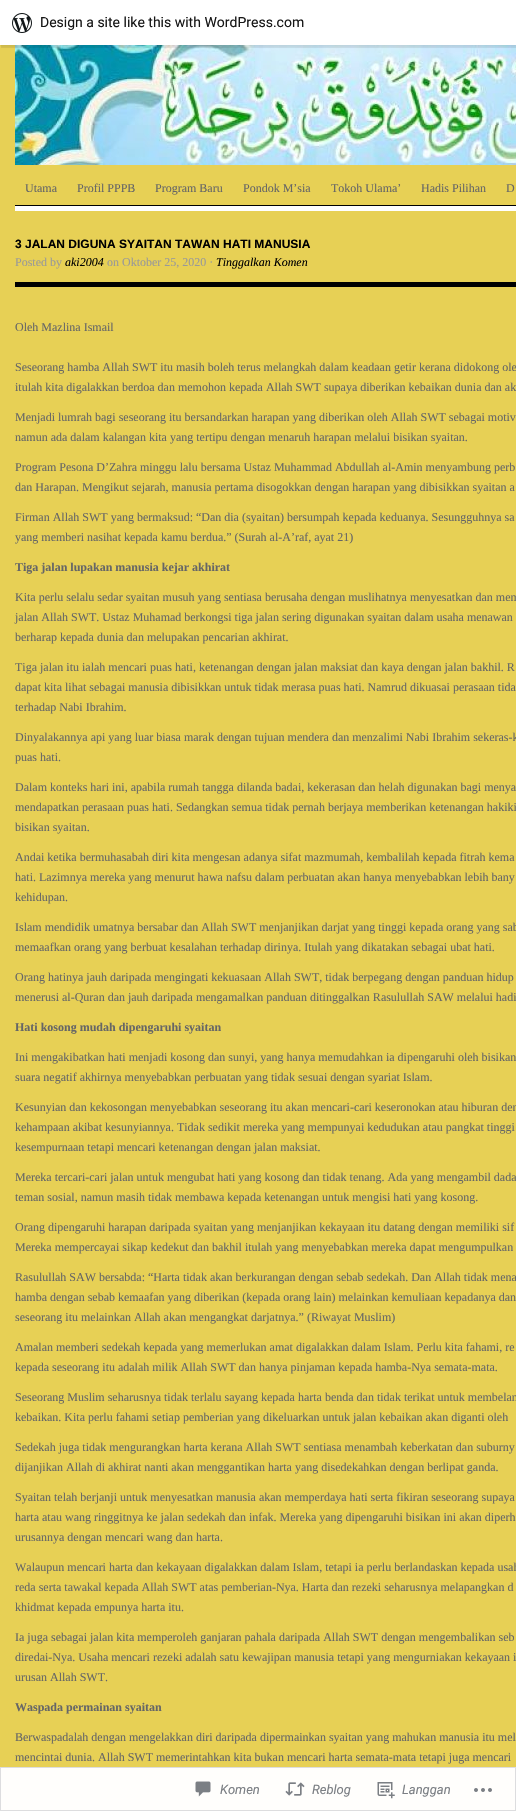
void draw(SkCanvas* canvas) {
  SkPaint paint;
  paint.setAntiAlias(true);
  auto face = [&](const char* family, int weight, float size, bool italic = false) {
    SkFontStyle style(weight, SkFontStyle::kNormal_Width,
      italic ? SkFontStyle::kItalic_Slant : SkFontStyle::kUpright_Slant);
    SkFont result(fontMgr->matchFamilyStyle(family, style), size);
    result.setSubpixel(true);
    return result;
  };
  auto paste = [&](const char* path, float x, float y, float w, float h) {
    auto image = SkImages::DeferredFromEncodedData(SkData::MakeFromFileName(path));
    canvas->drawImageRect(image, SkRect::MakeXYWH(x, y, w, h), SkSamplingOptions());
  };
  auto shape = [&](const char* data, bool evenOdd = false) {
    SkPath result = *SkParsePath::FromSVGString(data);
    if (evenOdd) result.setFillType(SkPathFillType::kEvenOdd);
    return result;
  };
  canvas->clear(0xffe7d055);
  paint.setColor(0xfffffefc);
  canvas->drawRect(SkRect::MakeXYWH(0, 1767, 516, 44), paint);
  paste("img/2.png", 15, 45, 501, 120);
  paint.setColor(0x0d000000);
  paint.setMaskFilter(SkMaskFilter::MakeBlur(kNormal_SkBlurStyle, 1));
  canvas->drawRect(SkRect::MakeXYWH(0, 1, 516, 45), paint);
  paint.setMaskFilter(nullptr);
  paint.setColor(0x14000000);
  canvas->drawPath(shape("M1 45V48H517V3H516V45Z"), paint);
  paint.setColor(0xffffffff);
  canvas->drawRect(SkRect::MakeXYWH(0, 0, 516, 45), paint);
  paste("img/1.png", 12, 13, 20, 20);
  {
    const struct { float x, y, w, h; SkColor color; } items[] = {
      {15, 206, 501, 5, 0xffffffff},
      {15, 205, 501, 1, 0xff000000},
      {15, 282, 501, 5, 0xff000000},
    };
    for (auto [x, y, w, h, color] : items) {
      paint.setColor(color);
      canvas->drawRect(SkRect::MakeXYWH(x, y, w, h), paint);
    }
  }
  paint.setStroke(true);
  paint.setStrokeWidth(1);
  paint.setColor(0xfadcdcde);
  canvas->drawRect(SkRect::MakeXYWH(0.5f, 1767.5f, 515, 43), paint);
  paste("img/3.png", 195, 1781, 16, 16);
  paste("img/4.png", 285, 1782, 20, 14);
  paste("img/5.png", 377, 1782, 18, 17);
  paste("img/6.png", 474, 1788, 18, 4);
  auto f0 = face("Roboto", 400, 14);
  paint.setStroke(false);
  paint.setColor(0xff171717);
  canvas->drawString("Design a site like this with WordPress.com", 40, 27, f0, paint);
  auto f1 = face("Liberation Serif", 400, 12);
  paint.setColor(0xff666666);
  {
    const struct { const char* s; float x, y; } items[] = {
      {"Utama", 25, 192},
      {"Profil PPPB", 77, 192},
      {"Program Baru", 155, 192},
      {"Pondok M’sia", 243, 192},
      {"Tokoh Ulama’", 331, 192},
      {"Hadis Pilihan", 421, 192},
      {"D", 506, 192},
    };
    for (auto [s, x, y] : items) {
      canvas->drawString(s, x, y, f1, paint);
    }
  }
  auto f2 = face("Liberation Sans", 700, 12);
  paint.setColor(0xff000000);
  canvas->drawString("3 JALAN DIGUNA SYAITAN TAWAN HATI MANUSIA", 15, 248, f2, paint);
  paint.setColor(0xff999999);
  canvas->drawString("Posted by", 15, 266, f1, paint);
  auto f3 = face("Liberation Serif", 400, 12, true);
  paint.setColor(0xff000000);
  canvas->drawString("aki2004", 65, 266, f3, paint);
  paint.setColor(0xff999999);
  canvas->drawString("on Oktober 25, 2020 ·", 107, 266, f1, paint);
  paint.setColor(0xff000000);
  canvas->drawString("Tinggalkan Komen", 216, 266, f3, paint);
  paint.setColor(0xff666666);
  {
    const struct { const char* s; float x, y; } items[] = {
      {"Oleh Mazlina Ismail", 15, 331},
      {"Seseorang hamba Allah SWT itu masih boleh terus melangkah dalam keadaan getir kerana didokong ole", 15, 371},
      {"itulah kita digalakkan berdoa dan memohon kepada Allah SWT supaya diberikan kebaikan dunia dan ak", 15, 391},
      {"Menjadi lumrah bagi seseorang itu bersandarkan harapan yang diberikan oleh Allah SWT sebagai motiv", 15, 421},
      {"namun ada dalam kalangan kita yang tertipu dengan menaruh harapan melalui bisikan syaitan.", 15, 441},
      {"Program Pesona D’Zahra minggu lalu bersama Ustaz Muhammad Abdullah al-Amin menyambung perb", 15, 471},
      {"dan Harapan. Mengikut sejarah, manusia pertama disogokkan dengan harapan yang dibisikkan syaitan a", 15, 491},
      {"Firman Allah SWT yang bermaksud: “Dan dia (syaitan) bersumpah kepada keduanya. Sesungguhnya sa", 15, 521},
      {"yang memberi nasihat kepada kamu berdua.” (Surah al-A’raf, ayat 21)", 15, 541},
    };
    for (auto [s, x, y] : items) {
      canvas->drawString(s, x, y, f1, paint);
    }
  }
  auto f4 = face("Liberation Serif", 700, 12);
  canvas->drawString("Tiga jalan lupakan manusia kejar akhirat", 15, 571, f4, paint);
  {
    const struct { const char* s; float x, y; } items[] = {
      {"Kita perlu selalu sedar syaitan musuh yang sentiasa berusaha dengan muslihatnya menyesatkan dan mem", 15, 601},
      {"jalan Allah SWT. Ustaz Muhamad berkongsi tiga jalan sering digunakan syaitan dalam usaha menawan", 15, 621},
      {"berharap kepada dunia dan melupakan pencarian akhirat.", 15, 641},
      {"Tiga jalan itu ialah mencari puas hati, ketenangan dengan jalan maksiat dan kaya dengan jalan bakhil. R", 15, 671},
      {"dapat kita lihat sebagai manusia dibisikkan untuk tidak merasa puas hati. Namrud dikuasai perasaan tida", 15, 691},
      {"terhadap Nabi Ibrahim.", 15, 711},
      {"Dinyalakannya api yang luar biasa marak dengan tujuan mendera dan menzalimi Nabi Ibrahim sekeras-k", 15, 741},
      {"puas hati.", 15, 761},
      {"Dalam konteks hari ini, apabila rumah tangga dilanda badai, kekerasan dan helah digunakan bagi menya", 15, 791},
      {"mendapatkan perasaan puas hati. Sedangkan semua tidak pernah berjaya memberikan ketenangan hakiki", 15, 811},
      {"bisikan syaitan.", 15, 831},
      {"Andai ketika bermuhasabah diri kita mengesan adanya sifat mazmumah, kembalilah kepada fitrah kema", 15, 861},
      {"hati. Lazimnya mereka yang menurut hawa nafsu dalam perbuatan akan hanya menyebabkan lebih bany", 15, 881},
      {"kehidupan.", 15, 901},
      {"Islam mendidik umatnya bersabar dan Allah SWT menjanjikan darjat yang tinggi kepada orang yang sab", 15, 931},
      {"memaafkan orang yang berbuat kesalahan terhadap dirinya. Itulah yang dikatakan sebagai ubat hati.", 15, 951},
      {"Orang hatinya jauh daripada mengingati kekuasaan Allah SWT, tidak berpegang dengan panduan hidup", 15, 981},
      {"menerusi al-Quran dan jauh daripada mengamalkan panduan ditinggalkan Rasulullah SAW melalui hadi", 15, 1001},
    };
    for (auto [s, x, y] : items) {
      canvas->drawString(s, x, y, f1, paint);
    }
  }
  canvas->drawString("Hati kosong mudah dipengaruhi syaitan", 15, 1031, f4, paint);
  {
    const struct { const char* s; float x, y; } items[] = {
      {"Ini mengakibatkan hati menjadi kosong dan sunyi, yang hanya memudahkan ia dipengaruhi oleh bisikan", 15, 1061},
      {"suara negatif akhirnya menyebabkan perbuatan yang tidak sesuai dengan syariat Islam.", 15, 1081},
      {"Kesunyian dan kekosongan menyebabkan seseorang itu akan mencari-cari keseronokan atau hiburan den", 15, 1111},
      {"kehampaan akibat kesunyiannya. Tidak sedikit mereka yang mempunyai kedudukan atau pangkat tinggi", 15, 1131},
      {"kesempurnaan tetapi mencari ketenangan dengan jalan maksiat.", 15, 1151},
      {"Mereka tercari-cari jalan untuk mengubat hati yang kosong dan tidak tenang. Ada yang mengambil dada", 15, 1181},
      {"teman sosial, namun masih tidak membawa kepada ketenangan untuk mengisi hati yang kosong.", 15, 1201},
      {"Orang dipengaruhi harapan daripada syaitan yang menjanjikan kekayaan itu datang dengan memiliki sif", 15, 1231},
      {"Mereka mempercayai sikap kedekut dan bakhil itulah yang menyebabkan mereka dapat mengumpulkan", 15, 1251},
      {"Rasulullah SAW bersabda: “Harta tidak akan berkurangan dengan sebab sedekah. Dan Allah tidak mena", 15, 1281},
      {"hamba dengan sebab kemaafan yang diberikan (kepada orang lain) melainkan kemuliaan kepadanya dan", 15, 1301},
      {"seseorang itu melainkan Allah akan mengangkat darjatnya.” (Riwayat Muslim)", 15, 1321},
      {"Amalan memberi sedekah kepada yang memerlukan amat digalakkan dalam Islam. Perlu kita fahami, re", 15, 1351},
      {"kepada seseorang itu adalah milik Allah SWT dan hanya pinjaman kepada hamba-Nya semata-mata.", 15, 1371},
      {"Seseorang Muslim seharusnya tidak terlalu sayang kepada harta benda dan tidak terikat untuk membelan", 15, 1401},
      {"kebaikan. Kita perlu fahami setiap pemberian yang dikeluarkan untuk jalan kebaikan akan diganti oleh", 15, 1421},
      {"Sedekah juga tidak mengurangkan harta kerana Allah SWT sentiasa menambah keberkatan dan suburny", 15, 1451},
      {"dijanjikan Allah di akhirat nanti akan menggantikan harta yang disedekahkan dengan berlipat ganda.", 15, 1471},
      {"Syaitan telah berjanji untuk menyesatkan manusia akan memperdaya hati serta fikiran seseorang supaya", 15, 1501},
      {"harta atau wang ringgitnya ke jalan sedekah dan infak. Mereka yang dipengaruhi bisikan ini akan diperh", 15, 1521},
      {"urusannya dengan mencari wang dan harta.", 15, 1541},
      {"Walaupun mencari harta dan kekayaan digalakkan dalam Islam, tetapi ia perlu berlandaskan kepada usah", 15, 1571},
      {"reda serta tawakal kepada Allah SWT atas pemberian-Nya. Harta dan rezeki seharusnya melapangkan d", 15, 1591},
      {"khidmat kepada empunya harta itu.", 15, 1611},
      {"Ia juga sebagai jalan kita memperoleh ganjaran pahala daripada Allah SWT dengan mengembalikan seb", 15, 1641},
      {"diredai-Nya. Usaha mencari rezeki adalah satu kewajipan manusia tetapi yang mengurniakan kekayaan i", 15, 1661},
      {"urusan Allah SWT.", 15, 1681},
    };
    for (auto [s, x, y] : items) {
      canvas->drawString(s, x, y, f1, paint);
    }
  }
  canvas->drawString("Waspada permainan syaitan", 15, 1711, f4, paint);
  canvas->drawString("Berwaspadalah dengan mengelakkan diri daripada dipermainkan syaitan yang mahukan manusia itu mel", 15, 1741, f1, paint);
  canvas->drawString("mencintai dunia. Allah SWT memerintahkan kita bukan mencari harta semata-mata tetapi juga mencari", 15, 1761, f1, paint);
  auto f5 = face("Roboto", 400, 13, true);
  paint.setColor(0xff7b7f84);
  {
    const struct { const char* s; float x, y; } items[] = {
      {"Komen", 220, 1794},
      {"Reblog", 312, 1794},
      {"Langgan", 402, 1794},
    };
    for (auto [s, x, y] : items) {
      canvas->drawString(s, x, y, f5, paint);
    }
  }
}
